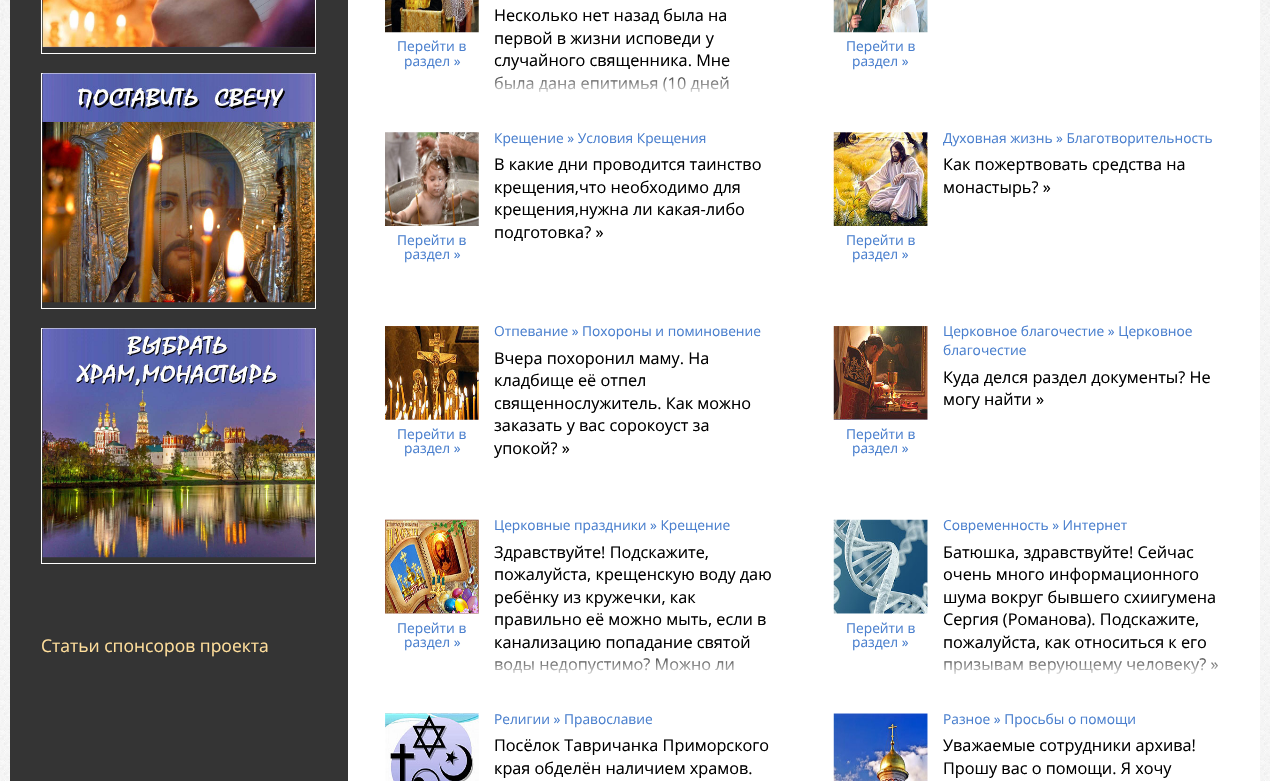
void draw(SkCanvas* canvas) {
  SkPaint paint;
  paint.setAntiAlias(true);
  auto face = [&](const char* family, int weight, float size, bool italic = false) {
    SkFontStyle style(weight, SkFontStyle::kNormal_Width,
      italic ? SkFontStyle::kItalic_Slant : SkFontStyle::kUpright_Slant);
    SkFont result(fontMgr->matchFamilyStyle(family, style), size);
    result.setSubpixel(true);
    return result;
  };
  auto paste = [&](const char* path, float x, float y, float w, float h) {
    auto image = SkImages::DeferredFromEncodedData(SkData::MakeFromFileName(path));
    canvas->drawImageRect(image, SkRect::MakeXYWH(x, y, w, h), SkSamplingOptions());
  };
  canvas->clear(0xffffffff);
  paste("img/1.png", 0, 23, 1270, 758);
  paste("img/2.png", 0, 0, 1270, 24);
  paint.setColor(0xff343434);
  canvas->drawRect(SkRect::MakeXYWH(10, 0, 338, 781), paint);
  paint.setStroke(true);
  paint.setStrokeWidth(1);
  paint.setColor(0xffffffff);
  canvas->drawRect(SkRect::MakeXYWH(41.5f, -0.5f, 274, 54), paint);
  paste("img/3.png", 42, 0, 273, 48);
  canvas->drawRect(SkRect::MakeXYWH(41.5f, 73.5f, 274, 235), paint);
  paste("img/4.png", 42, 73, 273, 230);
  canvas->drawRect(SkRect::MakeXYWH(41.5f, 328.5f, 274, 235), paint);
  paste("img/5.png", 42, 328, 273, 230);
  paint.setStroke(false);
  canvas->drawRect(SkRect::MakeXYWH(348, 0, 912, 781), paint);
  paste("img/6.png", 385, 0, 94, 33);
  paste("img/7.png", 833, 0, 95, 33);
  paste("img/8.png", 385, 132, 94, 94);
  paste("img/9.png", 833, 132, 95, 94);
  paste("img/10.png", 385, 326, 94, 94);
  paste("img/11.png", 833, 326, 95, 94);
  paste("img/12.png", 385, 519, 94, 95);
  paste("img/13.png", 833, 519, 95, 95);
  paste("img/14.png", 385, 713, 94, 68);
  paste("img/15.png", 833, 713, 95, 68);
  auto f0 = face("Open Sans", 400, 17.5f);
  paint.setColor(0xffffde9b);
  canvas->drawString("Статьи спонсоров проекта", 41, 652, f0, paint);
  auto f1 = face("Open Sans", 400, 13.75f);
  paint.setColor(0xff4a7fce);
  canvas->drawString("Перейти в", 397, 51, f1, paint);
  canvas->drawString("раздел »", 404, 66, f1, paint);
  auto f2 = face("Open Sans", 400, 16.25f);
  paint.setColor(0xff000000);
  {
    const struct { const char* s; float x, y; } items[] = {
      {"Несколько нет назад была на", 494, 21},
      {"первой в жизни исповеди у", 494, 44},
      {"случайного священника. Мне", 494, 66},
      {"была дана епитимья (10 дней", 494, 89},
    };
    for (auto [s, x, y] : items) {
      canvas->drawString(s, x, y, f2, paint);
    }
  }
  {
    const SkColor colors[] = {0xffffffff, 0x00ffffff};
    const float stops[] = {0, 1};
    const SkPoint ends[] = {{633, 96}, {633, 69}};
    paint.setShader(SkGradientShader::MakeLinear(ends, colors, stops, 2, SkTileMode::kClamp));
    paint.setAlpha(255);
  }
  canvas->drawRect(SkRect::MakeXYWH(494, 76, 234, 16), paint);
  paint.setShader(nullptr);
  paint.setColor(0xff4a7fce);
  {
    const struct { const char* s; float x, y; } items[] = {
      {"Перейти в", 846, 51},
      {"раздел »", 852, 66},
      {"Крещение » Условия Крещения", 494, 143},
    };
    for (auto [s, x, y] : items) {
      canvas->drawString(s, x, y, f1, paint);
    }
  }
  paint.setColor(0xff000000);
  {
    const struct { const char* s; float x, y; } items[] = {
      {"В какие дни проводится таинство", 494, 170},
      {"крещения,что необходимо для", 494, 193},
      {"крещения,нужна ли какая-либо", 494, 215},
      {"подготовка? »", 494, 238},
    };
    for (auto [s, x, y] : items) {
      canvas->drawString(s, x, y, f2, paint);
    }
  }
  paint.setColor(0xff4a7fce);
  canvas->drawString("Перейти в", 397, 245, f1, paint);
  canvas->drawString("раздел »", 404, 259, f1, paint);
  canvas->save();
  canvas->clipRect(SkRect::MakeXYWH(943, 128, 278, 162));
  canvas->drawString("Духовная жизнь", 943, 143, f1, paint);
  canvas->restore();
  canvas->drawString("» Благотворительность", 1056, 143, f1, paint);
  paint.setColor(0xff000000);
  canvas->drawString("Как пожертвовать средства на", 943, 170, f2, paint);
  canvas->drawString("монастырь? »", 943, 193, f2, paint);
  paint.setColor(0xff4a7fce);
  {
    const struct { const char* s; float x, y; } items[] = {
      {"Перейти в", 846, 245},
      {"раздел »", 852, 259},
      {"Перейти в", 397, 439},
      {"раздел »", 404, 453},
      {"Отпевание » Похороны и поминовение", 494, 336},
    };
    for (auto [s, x, y] : items) {
      canvas->drawString(s, x, y, f1, paint);
    }
  }
  paint.setColor(0xff000000);
  {
    const struct { const char* s; float x, y; } items[] = {
      {"Вчера похоронил маму. На", 494, 364},
      {"кладбище её отпел", 494, 386},
      {"священнослужитель. Как можно", 494, 409},
      {"заказать у вас сорокоуст за", 494, 431},
      {"упокой? »", 494, 454},
    };
    for (auto [s, x, y] : items) {
      canvas->drawString(s, x, y, f2, paint);
    }
  }
  {
    const SkColor colors[] = {0xffffffff, 0x00ffffff};
    const float stops[] = {0, 1};
    const SkPoint ends[] = {{633, 484}, {633, 456}};
    paint.setShader(SkGradientShader::MakeLinear(ends, colors, stops, 2, SkTileMode::kClamp));
    paint.setAlpha(255);
  }
  canvas->drawRect(SkRect::MakeXYWH(494, 457, 3, 1), paint);
  paint.setShader(nullptr);
  paint.setColor(0xff4a7fce);
  canvas->drawString("Церковное благочестие » Церковное", 943, 336, f1, paint);
  canvas->drawString("благочестие", 943, 355, f1, paint);
  paint.setColor(0xff000000);
  canvas->drawString("Куда делся раздел документы? Не", 943, 383, f2, paint);
  canvas->drawString("могу найти »", 943, 405, f2, paint);
  paint.setColor(0xff4a7fce);
  {
    const struct { const char* s; float x, y; } items[] = {
      {"Перейти в", 846, 439},
      {"раздел »", 852, 453},
      {"Перейти в", 397, 633},
      {"раздел »", 404, 647},
      {"Церковные праздники » Крещение", 494, 530},
    };
    for (auto [s, x, y] : items) {
      canvas->drawString(s, x, y, f1, paint);
    }
  }
  paint.setColor(0xff000000);
  {
    const struct { const char* s; float x, y; } items[] = {
      {"Здравствуйте! Подскажите,", 494, 558},
      {"пожалуйста, крещенскую воду даю", 494, 580},
      {"ребёнку из кружечки, как", 494, 603},
      {"правильно её можно мыть, если в", 494, 625},
      {"канализацию попадание святой", 494, 648},
      {"воды недопустимо? Можно ли", 494, 670},
    };
    for (auto [s, x, y] : items) {
      canvas->drawString(s, x, y, f2, paint);
    }
  }
  {
    const SkColor colors[] = {0xffffffff, 0x00ffffff};
    const float stops[] = {0, 1};
    const SkPoint ends[] = {{633, 678}, {633, 650}};
    paint.setShader(SkGradientShader::MakeLinear(ends, colors, stops, 2, SkTileMode::kClamp));
    paint.setAlpha(255);
  }
  canvas->drawRect(SkRect::MakeXYWH(495, 658, 239, 16), paint);
  paint.setShader(nullptr);
  paint.setColor(0xff4a7fce);
  {
    const struct { const char* s; float x, y; } items[] = {
      {"Перейти в", 846, 633},
      {"раздел »", 852, 647},
      {"Современность » Интернет", 943, 530},
    };
    for (auto [s, x, y] : items) {
      canvas->drawString(s, x, y, f1, paint);
    }
  }
  paint.setColor(0xff000000);
  {
    const struct { const char* s; float x, y; } items[] = {
      {"Батюшка, здравствуйте! Сейчас", 943, 558},
      {"очень много информационного", 943, 580},
      {"шума вокруг бывшего схиигумена", 943, 603},
      {"Сергия (Романова). Подскажите,", 943, 625},
      {"пожалуйста, как относиться к его", 943, 648},
      {"призывам верующему человеку? »", 943, 670},
    };
    for (auto [s, x, y] : items) {
      canvas->drawString(s, x, y, f2, paint);
    }
  }
  {
    const SkColor colors[] = {0xffffffff, 0x00ffffff};
    const float stops[] = {0, 1};
    const SkPoint ends[] = {{1082, 678}, {1082, 650}};
    paint.setShader(SkGradientShader::MakeLinear(ends, colors, stops, 2, SkTileMode::kClamp));
    paint.setAlpha(255);
  }
  canvas->drawRect(SkRect::MakeXYWH(943, 651, 275, 23), paint);
  paint.setShader(nullptr);
  paint.setColor(0xff4a7fce);
  canvas->drawString("Религии » Православие", 494, 724, f1, paint);
  paint.setColor(0xff000000);
  canvas->drawString("Посёлок Тавричанка Приморского", 494, 751, f2, paint);
  canvas->drawString("края обделён наличием храмов.", 494, 774, f2, paint);
  paint.setColor(0xff4a7fce);
  canvas->drawString("Разное » Просьбы о помощи", 943, 724, f1, paint);
  paint.setColor(0xff000000);
  canvas->drawString("Уважаемые сотрудники архива!", 943, 751, f2, paint);
  canvas->drawString("Прошу вас о помощи. Я хочу", 943, 774, f2, paint);
}
